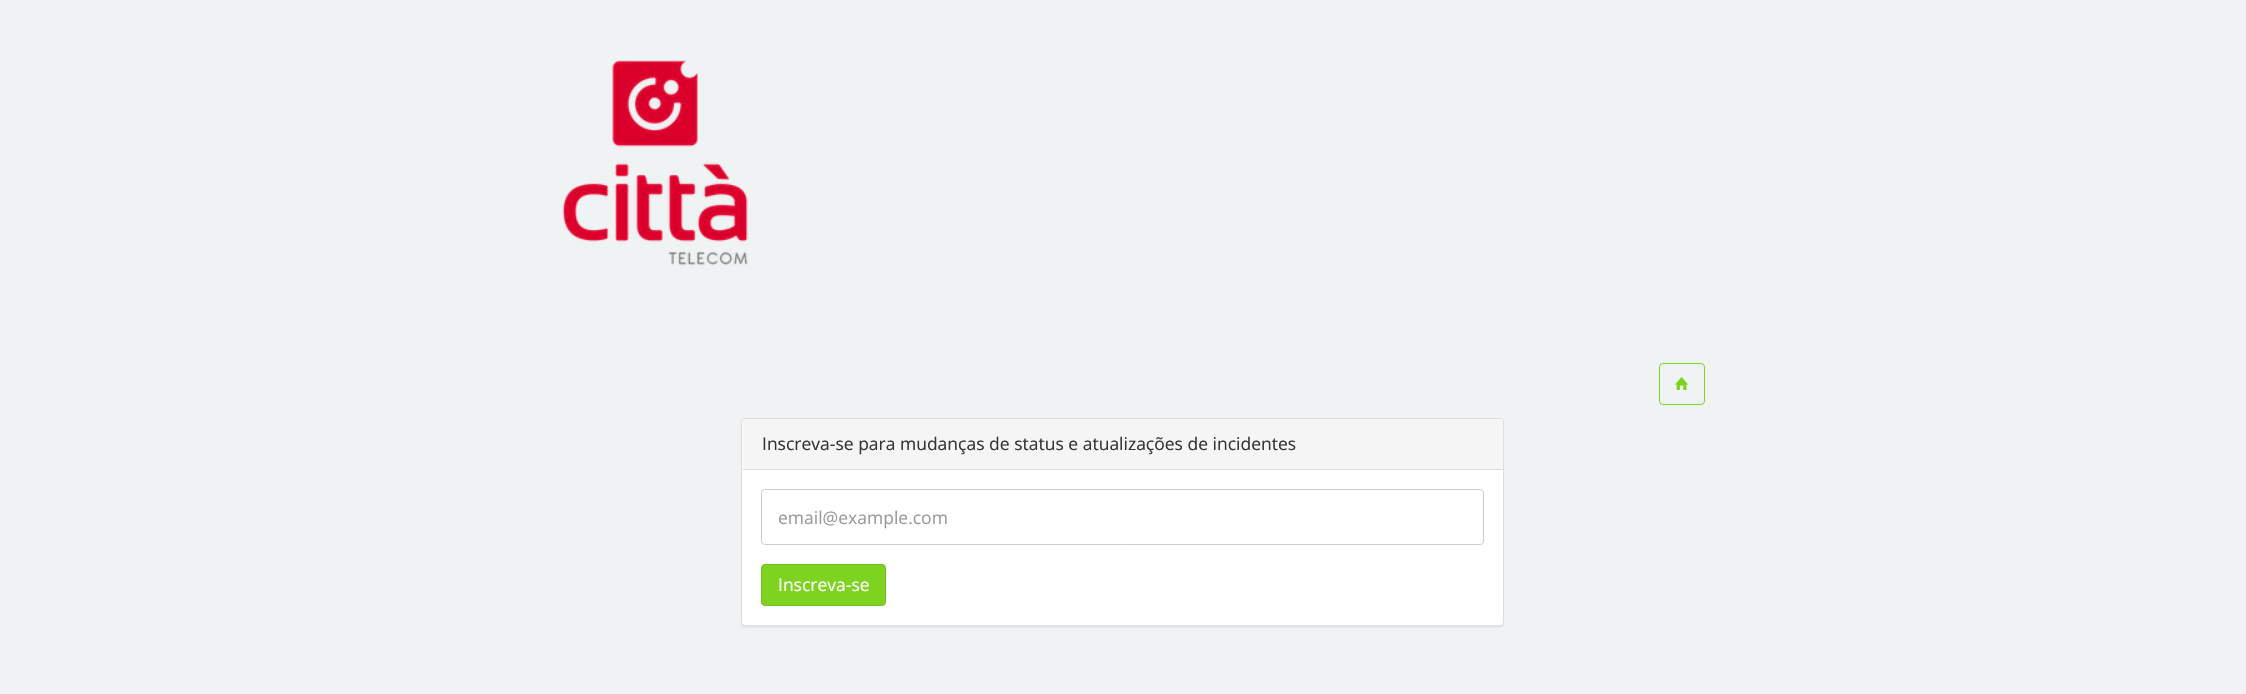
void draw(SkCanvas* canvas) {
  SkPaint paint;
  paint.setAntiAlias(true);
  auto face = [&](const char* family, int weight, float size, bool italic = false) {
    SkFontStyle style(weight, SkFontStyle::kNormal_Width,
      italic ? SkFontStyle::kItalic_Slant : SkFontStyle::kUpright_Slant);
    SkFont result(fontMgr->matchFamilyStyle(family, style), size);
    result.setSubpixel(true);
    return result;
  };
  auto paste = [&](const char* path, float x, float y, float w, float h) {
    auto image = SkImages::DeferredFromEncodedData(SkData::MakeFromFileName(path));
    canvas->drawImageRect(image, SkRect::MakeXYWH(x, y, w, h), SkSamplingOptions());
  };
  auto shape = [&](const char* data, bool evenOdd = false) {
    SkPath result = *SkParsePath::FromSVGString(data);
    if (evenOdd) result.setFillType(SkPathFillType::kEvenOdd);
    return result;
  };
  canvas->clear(0xfff0f3f4);
  paste("img/1.png", 562, 60, 186, 206);
  paint.setStroke(true);
  paint.setStrokeWidth(1);
  paint.setColor(0xff7ed321);
  canvas->drawRoundRect(SkRect::MakeXYWH(1659.5f, 363.5f, 45, 41), 3.5f, 3.5f, paint);
  paste("img/2.png", 1675, 377, 13, 13);
  paint.setStroke(false);
  paint.setColor(0x0d000000);
  paint.setMaskFilter(SkMaskFilter::MakeBlur(kNormal_SkBlurStyle, 0.5f));
  canvas->drawRoundRect(SkRect::MakeXYWH(741, 419, 763, 209), 4, 4, paint);
  paint.setMaskFilter(nullptr);
  paint.setColor(0xffffffff);
  canvas->drawRoundRect(SkRect::MakeXYWH(741.5f, 418.5f, 762, 207), 3.5f, 3.5f, paint);
  paint.setStroke(true);
  paint.setColor(0xffdddddd);
  canvas->drawRoundRect(SkRect::MakeXYWH(741.5f, 418.5f, 762, 207), 3.5f, 3.5f, paint);
  paint.setStroke(false);
  paint.setColor(0xfff5f5f5);
  canvas->drawPath(shape("M745.5 419H1500.5C1502 419 1503 420 1503 421.5V470H743V421.5C743 420 744 419 745.5 419Z"), paint);
  paint.setColor(0xffdddddd);
  canvas->drawRect(SkRect::MakeXYWH(743, 469, 760, 1), paint);
  paint.setStroke(true);
  paint.setColor(0xffcccccc);
  canvas->drawRoundRect(SkRect::MakeXYWH(761.5f, 489.5f, 722, 55), 3.5f, 3.5f, paint);
  paint.setStroke(false);
  paint.setColor(0xff7ed321);
  canvas->drawRoundRect(SkRect::MakeXYWH(761.5f, 564.5f, 124, 41), 3.5f, 3.5f, paint);
  paint.setStroke(true);
  paint.setColor(0xff71bd1d);
  canvas->drawRoundRect(SkRect::MakeXYWH(761.5f, 564.5f, 124, 41), 3.5f, 3.5f, paint);
  auto f0 = face("Open Sans", 400, 17.5f);
  paint.setStroke(false);
  paint.setColor(0xff333333);
  canvas->drawString("Inscreva-se para mudanças de status e atualizações de incidentes", 762, 450, f0, paint);
  paint.setColor(0xff999999);
  canvas->drawString("email@example.com", 778, 524, f0, paint);
  paint.setColor(0xffffffff);
  canvas->drawString("Inscreva-se", 778, 591, f0, paint);
}
